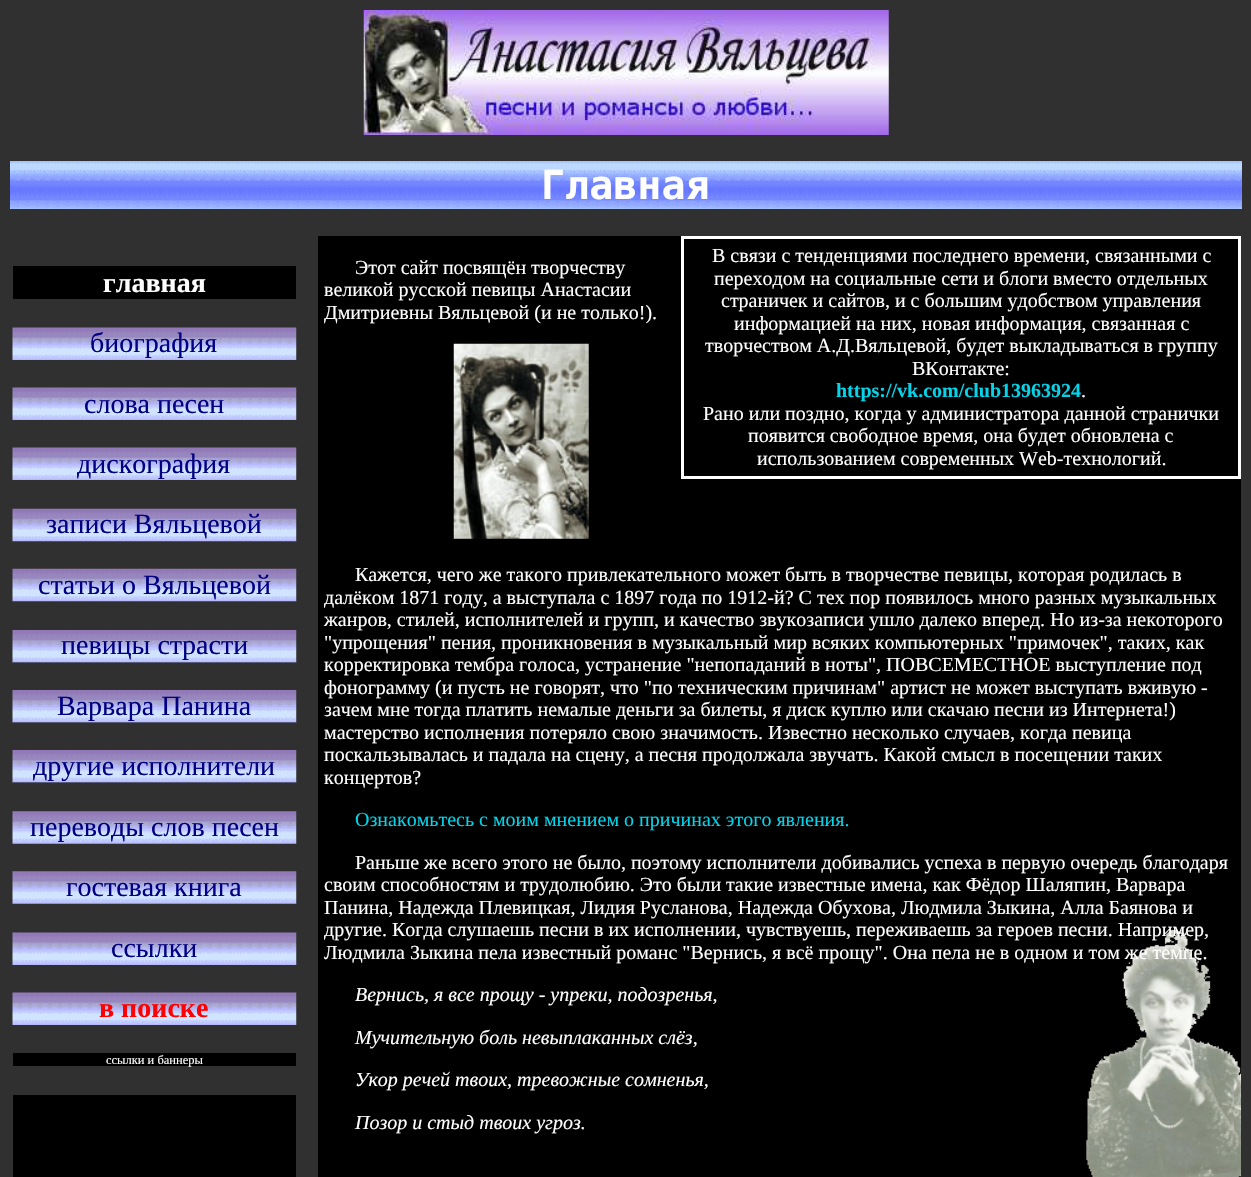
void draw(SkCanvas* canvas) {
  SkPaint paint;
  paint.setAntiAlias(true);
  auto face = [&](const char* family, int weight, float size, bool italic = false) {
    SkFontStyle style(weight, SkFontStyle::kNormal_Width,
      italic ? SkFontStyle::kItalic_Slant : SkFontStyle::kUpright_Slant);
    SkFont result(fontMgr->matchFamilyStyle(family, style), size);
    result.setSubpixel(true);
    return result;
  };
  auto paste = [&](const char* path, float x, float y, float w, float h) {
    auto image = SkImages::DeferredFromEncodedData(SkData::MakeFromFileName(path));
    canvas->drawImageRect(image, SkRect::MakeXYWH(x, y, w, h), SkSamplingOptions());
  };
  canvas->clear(0xff303030);
  paste("img/1.png", 363, 10, 526, 125);
  paste("img/2.png", 10, 161, 1232, 48);
  paint.setColor(0xff000000);
  canvas->drawRect(SkRect::MakeXYWH(13, 266, 283, 33), paint);
  paste("img/3.png", 12, 327, 285, 33);
  paste("img/4.png", 12, 387, 285, 33);
  paste("img/5.png", 12, 447, 285, 33);
  paste("img/6.png", 12, 508, 285, 34);
  paste("img/6.png", 12, 568, 285, 34);
  canvas->drawRect(SkRect::MakeXYWH(13, 662, 283, 1), paint);
  paste("img/7.png", 12, 630, 285, 33);
  canvas->drawRect(SkRect::MakeXYWH(13, 722, 283, 1), paint);
  paste("img/8.png", 12, 690, 285, 33);
  canvas->drawRect(SkRect::MakeXYWH(13, 782, 283, 1), paint);
  paste("img/9.png", 12, 750, 285, 33);
  paste("img/10.png", 12, 811, 285, 33);
  paste("img/11.png", 12, 871, 285, 33);
  paste("img/12.png", 12, 932, 285, 33);
  paste("img/13.png", 12, 992, 285, 33);
  {
    const struct { float x, y, w, h; SkColor color; } items[] = {
      {13, 1053, 283, 13, 0xff000000},
      {13, 1095, 283, 82, 0xff000000},
      {318, 236, 923, 941, 0xff000000},
    };
    for (auto [x, y, w, h, color] : items) {
      paint.setColor(color);
      canvas->drawRect(SkRect::MakeXYWH(x, y, w, h), paint);
    }
  }
  paste("img/14.png", 1086, 929, 155, 248);
  paint.setStroke(true);
  paint.setStrokeWidth(3);
  paint.setColor(0xffffffff);
  canvas->drawRect(SkRect::MakeXYWH(682.5f, 237.5f, 557, 240), paint);
  paste("img/15.png", 453, 343, 136, 196);
  auto f0 = face("DejaVu Sans Mono", 700, 40);
  paint.setStroke(false);
  canvas->drawString("Главная", 541, 199, f0, paint);
  auto f1 = face("Liberation Serif", 700, 28);
  canvas->drawString("главная", 103, 292, f1, paint);
  auto f2 = face("Liberation Serif", 400, 28);
  paint.setColor(0xff000080);
  {
    const struct { const char* s; float x, y; } items[] = {
      {"биография", 90, 352},
      {"слова песен", 84, 413},
      {"дискография", 77, 473},
      {"записи Вяльцевой", 46, 533},
      {"статьи о Вяльцевой", 38, 594},
      {"певицы страсти", 61, 654},
      {"Варвара Панина", 57, 715},
      {"другие исполнители", 33, 775},
      {"переводы слов песен", 30, 836},
      {"гостевая книга", 66, 896},
      {"ссылки", 111, 957},
    };
    for (auto [s, x, y] : items) {
      canvas->drawString(s, x, y, f2, paint);
    }
  }
  paint.setColor(0xffff0000);
  canvas->drawString("в поиске", 99, 1017, f1, paint);
  auto f3 = face("Liberation Serif", 400, 12.5f);
  paint.setColor(0xffffffff);
  canvas->drawString("ссылки и баннеры", 106, 1064, f3, paint);
  auto f4 = face("Liberation Serif", 400, 20);
  {
    const struct { const char* s; float x, y; } items[] = {
      {"Этот сайт посвящён творчеству", 355, 274},
      {"великой русской певицы Анастасии", 324, 296},
      {"Дмитриевны Вяльцевой (и не только!).", 324, 319},
      {"В связи с тенденциями последнего времени, связанными с", 712, 262},
      {"переходом на социальные сети и блоги вместо отдельных", 714, 285},
      {"страничек и сайтов, и с большим удобством управления", 721, 307},
      {"информацией на них, новая информация, связанная с", 734, 330},
      {"творчеством А.Д.Вяльцевой, будет выкладываться в группу", 705, 352},
      {"ВКонтакте:", 912, 375},
    };
    for (auto [s, x, y] : items) {
      canvas->drawString(s, x, y, f4, paint);
    }
  }
  auto f5 = face("Liberation Serif", 700, 20);
  paint.setColor(0xff05d3e9);
  canvas->drawString("https://vk.com/club13963924", 836, 397, f5, paint);
  paint.setColor(0xffffffff);
  {
    const struct { const char* s; float x, y; } items[] = {
      {".", 1081, 397},
      {"Рано или поздно, когда у администратора данной странички", 703, 420},
      {"появится свободное время, она будет обновлена с", 748, 442},
      {"использованием современных Web-технологий.", 757, 465},
      {"Кажется, чего же такого привлекательного может быть в творчестве певицы, которая родилась в", 355, 581},
      {"далёком 1871 году, а выступала с 1897 года по 1912-й? С тех пор появилось много разных музыкальных", 324, 604},
      {"жанров, стилей, исполнителей и групп, и качество звукозаписи ушло далеко вперед. Но из-за некоторого", 324, 626},
      {"\"упрощения\" пения, проникновения в музыкальный мир всяких компьютерных \"примочек\", таких, как", 324, 649},
      {"корректировка тембра голоса, устранение \"непопаданий в ноты\", ПОВСЕМЕСТНОЕ выступление под", 324, 671},
      {"фонограмму (и пусть не говорят, что \"по техническим причинам\" артист не может выступать вживую -", 324, 694},
      {"зачем мне тогда платить немалые деньги за билеты, я диск куплю или скачаю песни из Интернета!)", 324, 716},
      {"мастерство исполнения потеряло свою значимость. Известно несколько случаев, когда певица", 324, 739},
      {"поскальзывалась и падала на сцену, а песня продолжала звучать. Какой смысл в посещении таких", 324, 761},
      {"концертов?", 324, 784},
    };
    for (auto [s, x, y] : items) {
      canvas->drawString(s, x, y, f4, paint);
    }
  }
  paint.setColor(0xff05d3e9);
  canvas->drawString("Ознакомьтесь с моим мнением о причинах этого явления.", 355, 826, f4, paint);
  paint.setColor(0xffffffff);
  {
    const struct { const char* s; float x, y; } items[] = {
      {"Раньше же всего этого не было, поэтому исполнители добивались успеха в первую очередь благодаря", 355, 869},
      {"своим способностям и трудолюбию. Это были такие известные имена, как Фёдор Шаляпин, Варвара", 324, 891},
      {"Панина, Надежда Плевицкая, Лидия Русланова, Надежда Обухова, Людмила Зыкина, Алла Баянова и", 324, 914},
      {"другие. Когда слушаешь песни в их исполнении, чувствуешь, переживаешь за героев песни. Например,", 324, 936},
      {"Людмила Зыкина пела известный романс \"Вернись, я всё прощу\". Она пела не в одном и том же темпе.", 324, 959},
    };
    for (auto [s, x, y] : items) {
      canvas->drawString(s, x, y, f4, paint);
    }
  }
  auto f6 = face("Liberation Serif", 400, 20, true);
  {
    const struct { const char* s; float x, y; } items[] = {
      {"Вернись, я все прощу - упреки, подозренья,", 355, 1001},
      {"Мучительную боль невыплаканных слёз,", 355, 1044},
      {"Укор речей твоих, тревожные сомненья,", 355, 1086},
      {"Позор и стыд твоих угроз.", 355, 1129},
    };
    for (auto [s, x, y] : items) {
      canvas->drawString(s, x, y, f6, paint);
    }
  }
}
